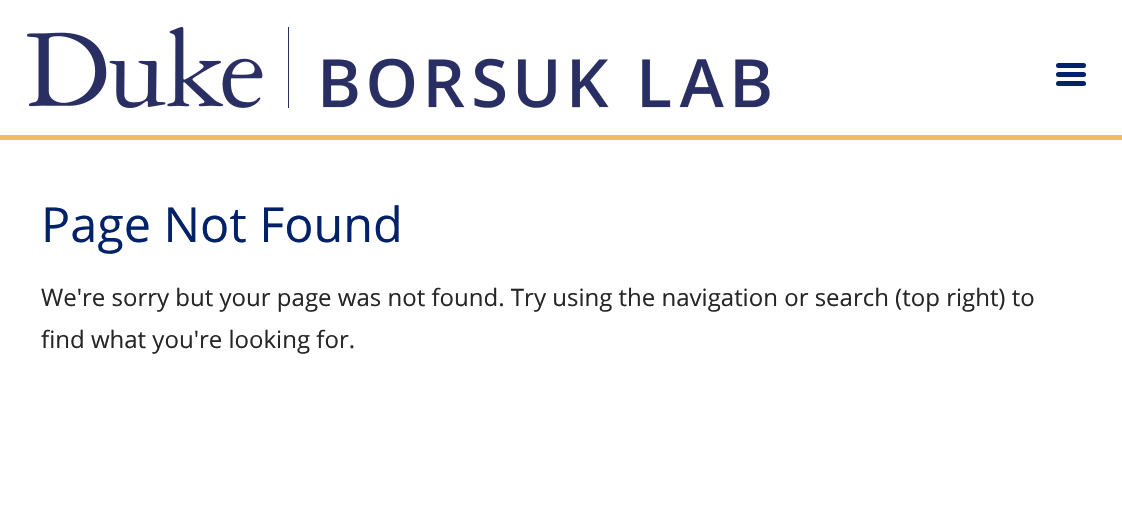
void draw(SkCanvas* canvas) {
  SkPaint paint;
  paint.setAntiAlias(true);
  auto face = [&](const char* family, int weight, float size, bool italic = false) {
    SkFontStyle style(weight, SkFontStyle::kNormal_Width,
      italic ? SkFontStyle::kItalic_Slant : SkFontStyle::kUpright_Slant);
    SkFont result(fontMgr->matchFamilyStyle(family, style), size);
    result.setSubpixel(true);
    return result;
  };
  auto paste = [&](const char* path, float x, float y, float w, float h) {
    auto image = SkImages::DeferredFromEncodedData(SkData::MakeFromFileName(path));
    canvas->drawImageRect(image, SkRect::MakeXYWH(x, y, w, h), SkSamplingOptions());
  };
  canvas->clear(0xffffffff);
  paint.setColor(0xffeebd60);
  canvas->drawRect(SkRect::MakeXYWH(0, 135, 1122, 5), paint);
  paste("img/1.png", 27, 27, 743, 81);
  paint.setColor(0xff012169);
  canvas->drawRoundRect(SkRect::MakeXYWH(1056, 63, 30, 5), 2.5f, 2.5f, paint);
  canvas->drawRoundRect(SkRect::MakeXYWH(1056, 72, 30, 5), 2.5f, 2.5f, paint);
  canvas->drawRoundRect(SkRect::MakeXYWH(1056, 81, 30, 5), 2.5f, 2.5f, paint);
  auto f0 = face("Open Sans", 400, 48.5f);
  canvas->drawString("Page Not Found", 41, 242, f0, paint);
  auto f1 = face("Open Sans", 400, 24);
  paint.setColor(0xff262626);
  canvas->drawString("We're sorry but your page was not found. Try using the navigation or search (top right) to", 41, 306, f1, paint);
  canvas->drawString("find what you're looking for.", 41, 348, f1, paint);
}
